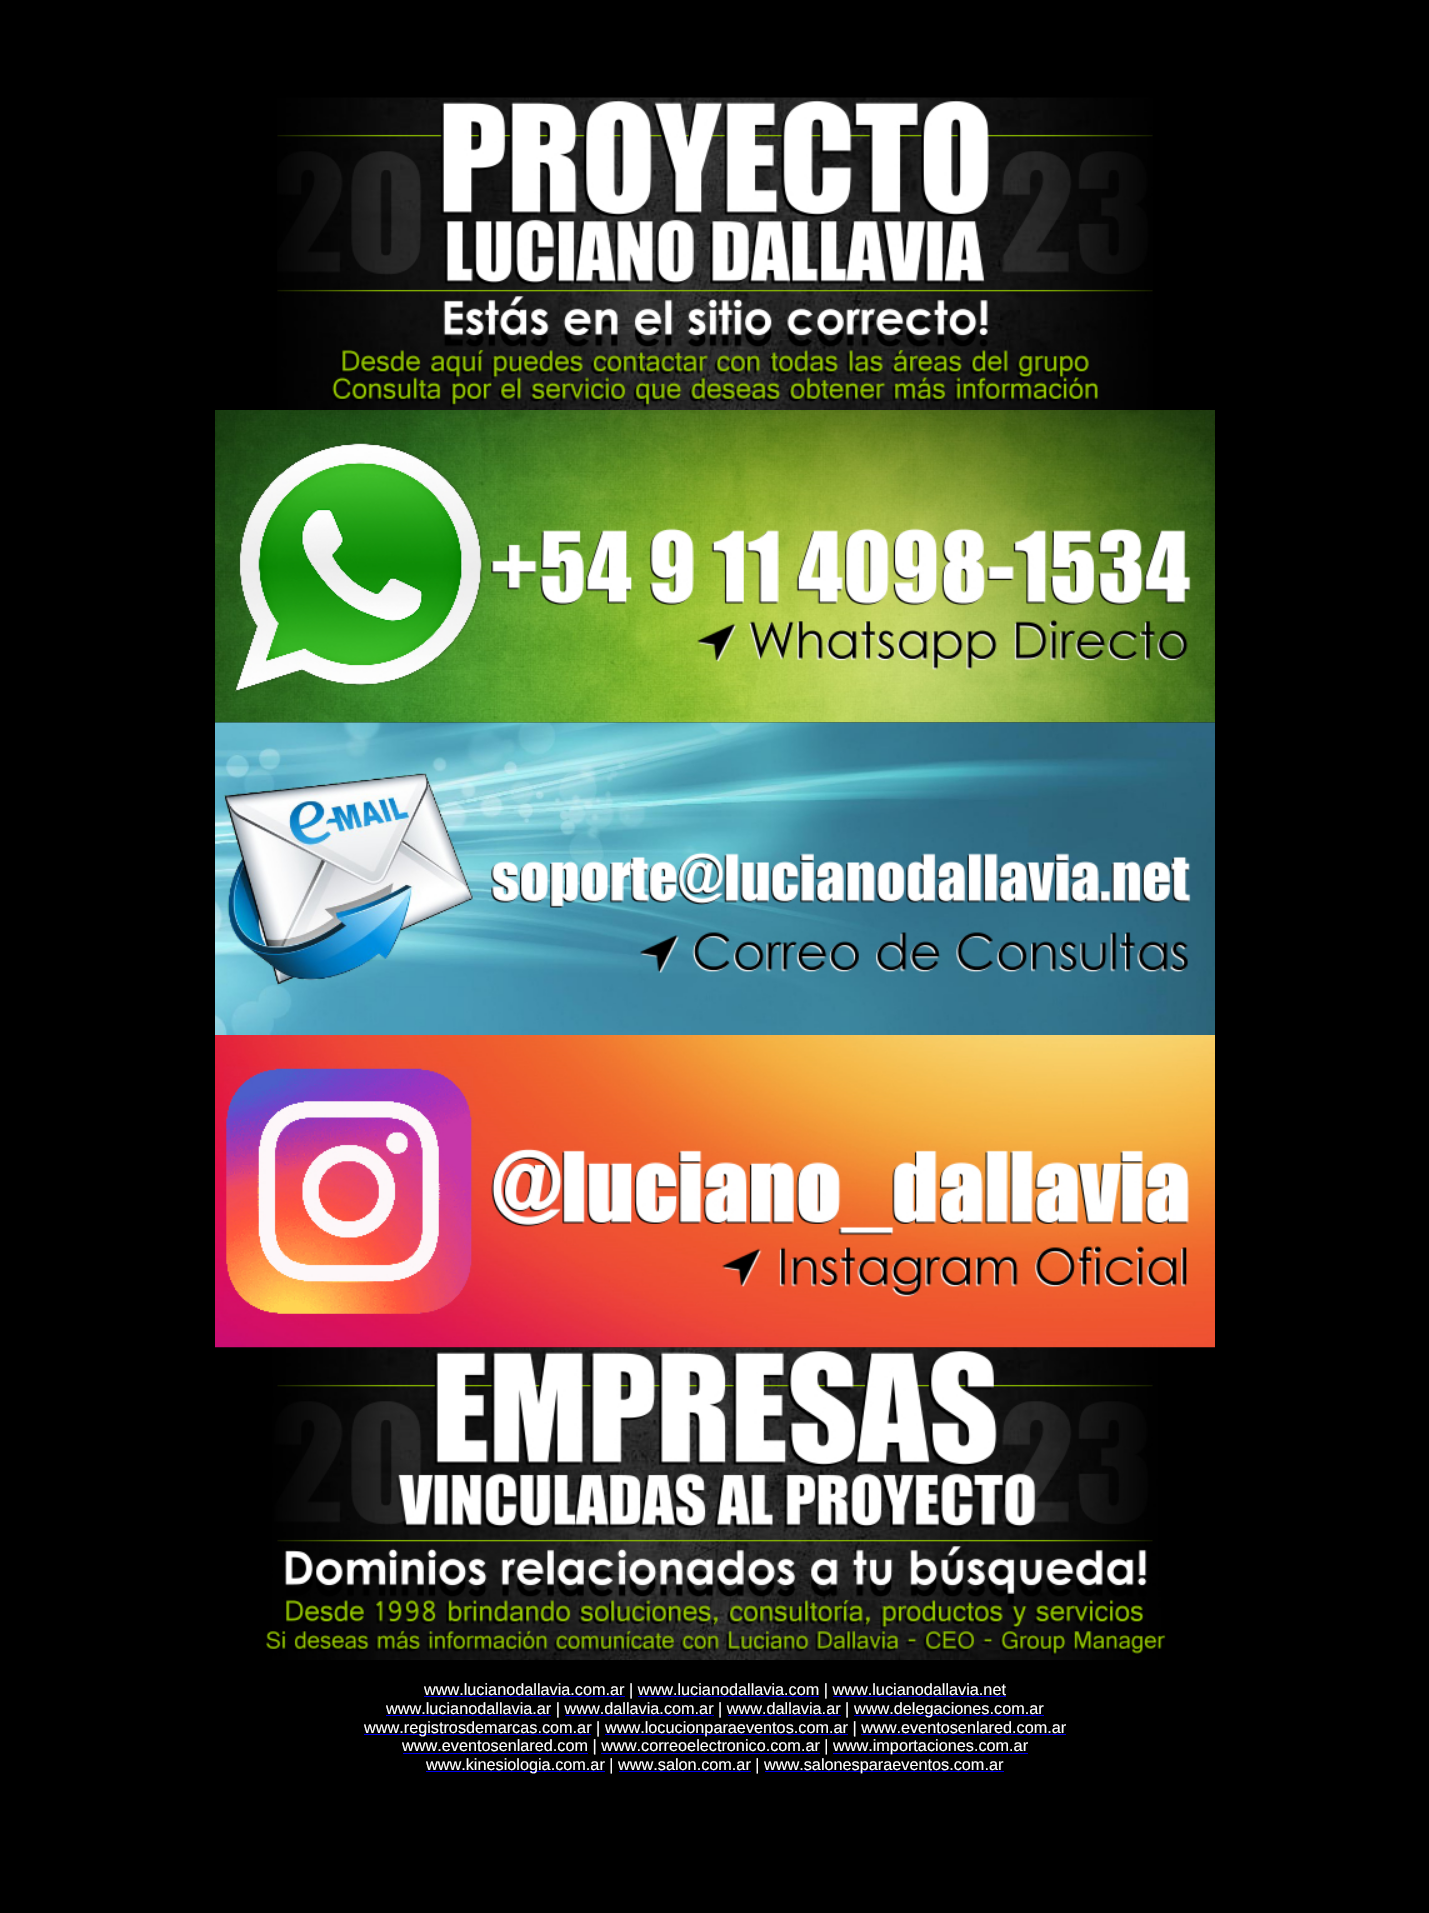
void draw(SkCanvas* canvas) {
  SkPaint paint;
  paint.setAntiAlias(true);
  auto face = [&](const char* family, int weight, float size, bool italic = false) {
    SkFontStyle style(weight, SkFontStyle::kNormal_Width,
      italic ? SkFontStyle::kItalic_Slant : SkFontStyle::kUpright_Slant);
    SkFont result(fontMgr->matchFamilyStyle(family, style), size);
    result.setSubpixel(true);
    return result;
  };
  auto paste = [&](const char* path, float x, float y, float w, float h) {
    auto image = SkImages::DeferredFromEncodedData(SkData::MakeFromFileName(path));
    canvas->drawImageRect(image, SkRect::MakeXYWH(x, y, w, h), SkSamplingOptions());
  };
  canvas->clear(0xff000000);
  paste("img/1.png", 277, 97, 876, 313);
  paste("img/2.png", 215, 410, 1000, 313);
  paste("img/3.png", 215, 722, 1000, 313);
  paste("img/4.png", 215, 1035, 1000, 313);
  paste("img/5.png", 215, 1347, 1000, 313);
  {
    const struct { float x, y, w, h; SkColor color; } items[] = {
      {424, 1696, 201, 1, 0xff0000ee},
      {386, 1715, 165, 1, 0xff0000ee},
      {854, 1715, 190, 1, 0xff0000ee},
      {364, 1734, 227, 1, 0xff0000ee},
      {605, 1734, 243, 1, 0xff0000ee},
      {403, 1753, 185, 1, 0xff0000ee},
      {833, 1753, 195, 1, 0xff0000ee},
      {426, 1771, 179, 1, 0xff0000ee},
      {765, 1771, 239, 1, 0xff0000ee},
    };
    for (auto [x, y, w, h, color] : items) {
      paint.setColor(color);
      canvas->drawRect(SkRect::MakeXYWH(x, y, w, h), paint);
    }
  }
  auto f0 = face("Liberation Sans", 400, 16.25f);
  paint.setColor(0xffffffff);
  canvas->drawString("www.lucianodallavia.com.ar | www.lucianodallavia.com | www.lucianodallavia.net", 424, 1695, f0, paint);
  paint.setColor(0xff0000ee);
  canvas->drawRect(SkRect::MakeXYWH(638, 1696, 181, 1), paint);
  canvas->drawRect(SkRect::MakeXYWH(833, 1696, 173, 1), paint);
  paint.setColor(0xffffffff);
  canvas->drawString("www.lucianodallavia.ar | www.dallavia.com.ar | www.dallavia.ar |", 386, 1714, f0, paint);
  paint.setColor(0xff0000ee);
  canvas->drawRect(SkRect::MakeXYWH(565, 1715, 149, 1), paint);
  canvas->drawRect(SkRect::MakeXYWH(728, 1715, 113, 1), paint);
  paint.setColor(0xffffffff);
  {
    const struct { const char* s; float x, y; } items[] = {
      {"www.delegaciones.com.ar", 854, 1714},
      {"www.registrosdemarcas.com.ar |", 364, 1733},
      {"www.locucionparaeventos.com.ar | www.eventosenlared.com.ar", 605, 1733},
    };
    for (auto [s, x, y] : items) {
      canvas->drawString(s, x, y, f0, paint);
    }
  }
  paint.setColor(0xff0000ee);
  canvas->drawRect(SkRect::MakeXYWH(861, 1734, 205, 1), paint);
  paint.setColor(0xffffffff);
  canvas->drawString("www.eventosenlared.com | www.correoelectronico.com.ar |", 402, 1751, f0, paint);
  paint.setColor(0xff0000ee);
  canvas->drawRect(SkRect::MakeXYWH(601, 1753, 219, 1), paint);
  paint.setColor(0xffffffff);
  canvas->drawString("www.importaciones.com.ar", 833, 1751, f0, paint);
  canvas->drawString("www.kinesiologia.com.ar | www.salon.com.ar |", 426, 1770, f0, paint);
  paint.setColor(0xff0000ee);
  canvas->drawRect(SkRect::MakeXYWH(619, 1771, 132, 1), paint);
  paint.setColor(0xffffffff);
  canvas->drawString("www.salonesparaeventos.com.ar", 764, 1770, f0, paint);
}
